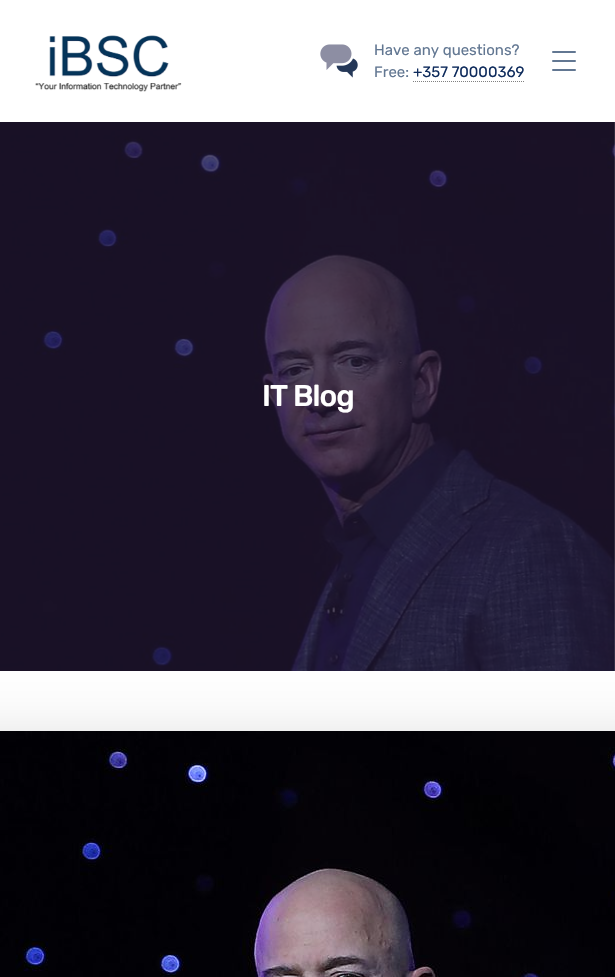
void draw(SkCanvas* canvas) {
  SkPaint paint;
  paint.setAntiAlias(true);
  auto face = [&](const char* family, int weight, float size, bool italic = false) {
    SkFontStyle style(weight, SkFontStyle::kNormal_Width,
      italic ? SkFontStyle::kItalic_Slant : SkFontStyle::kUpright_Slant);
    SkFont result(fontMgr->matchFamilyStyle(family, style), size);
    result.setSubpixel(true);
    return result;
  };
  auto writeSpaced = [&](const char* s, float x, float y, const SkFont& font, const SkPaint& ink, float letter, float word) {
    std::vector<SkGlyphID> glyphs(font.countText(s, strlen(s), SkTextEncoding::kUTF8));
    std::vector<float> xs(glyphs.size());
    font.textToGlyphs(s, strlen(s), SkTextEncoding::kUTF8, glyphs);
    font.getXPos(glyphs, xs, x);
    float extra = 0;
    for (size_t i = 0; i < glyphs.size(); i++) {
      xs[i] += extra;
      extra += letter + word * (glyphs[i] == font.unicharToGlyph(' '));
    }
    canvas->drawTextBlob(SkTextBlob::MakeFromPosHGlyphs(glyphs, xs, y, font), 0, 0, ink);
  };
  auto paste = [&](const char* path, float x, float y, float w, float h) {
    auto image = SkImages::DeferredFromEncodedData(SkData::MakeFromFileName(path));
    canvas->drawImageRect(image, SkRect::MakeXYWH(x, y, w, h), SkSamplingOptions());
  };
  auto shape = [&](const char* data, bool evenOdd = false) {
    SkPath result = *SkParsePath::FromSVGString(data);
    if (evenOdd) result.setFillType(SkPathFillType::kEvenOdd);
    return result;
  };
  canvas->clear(0xffffffff);
  paste("img/1.png", 35, 35, 147, 57);
  paste("img/2.png", 320, 44, 38, 34);
  paint.setStroke(true);
  paint.setStrokeWidth(1);
  paint.setColor(0xff808080);
  paint.setPathEffect(SkDashPathEffect::Make({{1, 1}}, 0));
  canvas->drawPath(shape("M413 81.5H524"), paint);
  paint.setPathEffect(nullptr);
  paint.setStroke(false);
  paint.setColor(0xff627792);
  canvas->drawRoundRect(SkRect::MakeXYWH(552, 51, 24, 2), 1, 1, paint);
  canvas->drawRoundRect(SkRect::MakeXYWH(552, 69, 24, 2), 1, 1, paint);
  canvas->drawRoundRect(SkRect::MakeXYWH(552, 60, 24, 2), 1, 1, paint);
  paste("img/3.png", 0, 122, 615, 549);
  paint.setColor(0x26000000);
  paint.setMaskFilter(SkMaskFilter::MakeBlur(kNormal_SkBlurStyle, 30));
  canvas->drawRect(SkRect::MakeXYWH(-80, 741, 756, 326), paint);
  paint.setMaskFilter(nullptr);
  paste("img/4.png", 0, 731, 615, 246);
  auto f0 = face("Rubik", 400, 15);
  paint.setColor(0xff627792);
  canvas->drawString("Have any questions?", 374, 55, f0, paint);
  canvas->drawString("Free:", 374, 77, f0, paint);
  paint.setColor(0xff0e2b5c);
  canvas->drawString("+357 70000369", 413, 77, f0, paint);
  auto f1 = face("Rubik", 500, 30);
  paint.setColor(0xffffffff);
  writeSpaced("IT Blog", 262, 406, f1, paint, -1, 0);
}
